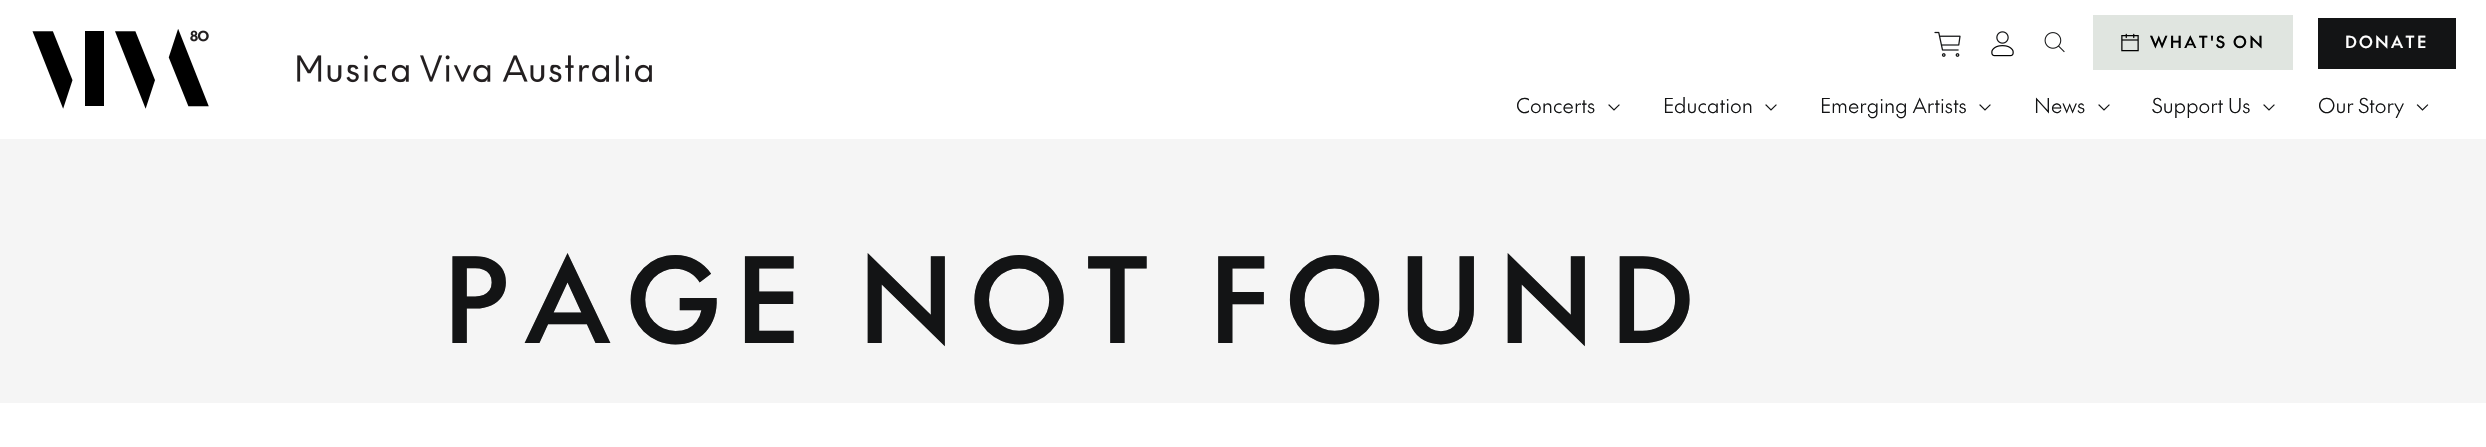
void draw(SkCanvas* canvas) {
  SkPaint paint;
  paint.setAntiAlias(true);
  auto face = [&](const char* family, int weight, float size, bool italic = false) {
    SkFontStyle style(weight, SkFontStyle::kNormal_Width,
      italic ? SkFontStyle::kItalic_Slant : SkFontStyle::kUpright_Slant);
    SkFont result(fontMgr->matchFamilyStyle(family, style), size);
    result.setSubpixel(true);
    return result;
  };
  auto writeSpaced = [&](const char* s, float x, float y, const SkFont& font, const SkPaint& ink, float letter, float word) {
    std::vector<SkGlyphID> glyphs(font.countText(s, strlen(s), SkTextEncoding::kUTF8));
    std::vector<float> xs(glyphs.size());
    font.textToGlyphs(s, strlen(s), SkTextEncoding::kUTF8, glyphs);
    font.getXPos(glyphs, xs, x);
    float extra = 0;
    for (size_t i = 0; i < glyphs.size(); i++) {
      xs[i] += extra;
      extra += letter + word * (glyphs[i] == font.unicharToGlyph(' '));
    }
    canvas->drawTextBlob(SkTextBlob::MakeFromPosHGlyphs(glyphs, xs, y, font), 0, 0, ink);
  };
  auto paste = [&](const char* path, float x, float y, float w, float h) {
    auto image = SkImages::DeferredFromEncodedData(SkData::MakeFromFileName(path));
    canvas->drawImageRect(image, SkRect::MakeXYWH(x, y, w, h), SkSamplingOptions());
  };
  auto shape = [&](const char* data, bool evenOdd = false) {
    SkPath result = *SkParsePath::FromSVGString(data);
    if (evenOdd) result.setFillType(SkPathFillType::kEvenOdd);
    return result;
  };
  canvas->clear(0xffffffff);
  paste("img/1.png", 32, 29, 620, 80);
  paste("img/2.png", 1934, 31, 27, 26);
  paste("img/3.png", 1991, 31, 23, 26);
  paste("img/4.png", 2044, 32, 21, 21);
  paint.setColor(0xffe0e5e0);
  canvas->drawRect(SkRect::MakeXYWH(2093, 15, 200, 55), paint);
  paste("img/5.png", 2121, 33, 18, 19);
  paint.setColor(0xff131415);
  canvas->drawRect(SkRect::MakeXYWH(2318, 18, 138, 51), paint);
  paint.setStroke(true);
  paint.setStrokeWidth(1.2f);
  paint.setStrokeCap(SkPaint::kSquare_Cap);
  canvas->drawPath(shape("M1609 105L1614 110L1619 105"), paint);
  canvas->drawPath(shape("M1766 105L1771 110L1776 105"), paint);
  canvas->drawPath(shape("M1980 105L1985 110L1990 105"), paint);
  canvas->drawPath(shape("M2099 105L2104 110L2109 105"), paint);
  canvas->drawPath(shape("M2264 105L2269 110L2274 105"), paint);
  canvas->drawPath(shape("M2417.5 105L2422.5 110L2427.5 105"), paint);
  paint.setStroke(false);
  paint.setColor(0xfff5f5f5);
  canvas->drawRect(SkRect::MakeXYWH(0, 139, 2486, 264), paint);
  auto f0 = face("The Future", 500, 16.25f);
  paint.setColor(0xff000000);
  writeSpaced("WHAT'S ON", 2150, 48, f0, paint, 2.25f, 0);
  paint.setColor(0xffffffff);
  writeSpaced("DONATE", 2345, 48, f0, paint, 2.25f, 0);
  auto f1 = face("The Future", 300, 20);
  paint.setColor(0xff131415);
  {
    const struct { const char* s; float x, y; } items[] = {
      {"Concerts", 1516, 113},
      {"Education", 1663, 113},
      {"Emerging Artists", 1820, 113},
      {"News", 2034, 113},
      {"Support Us", 2152, 113},
      {"Our Story", 2318, 113},
    };
    for (auto [s, x, y] : items) {
      canvas->drawString(s, x, y, f1, paint);
    }
  }
  auto f2 = face("The Future", 500, 115);
  writeSpaced("PAGE NOT FOUND", 443, 343, f2, paint, 16.1f, 0);
}
